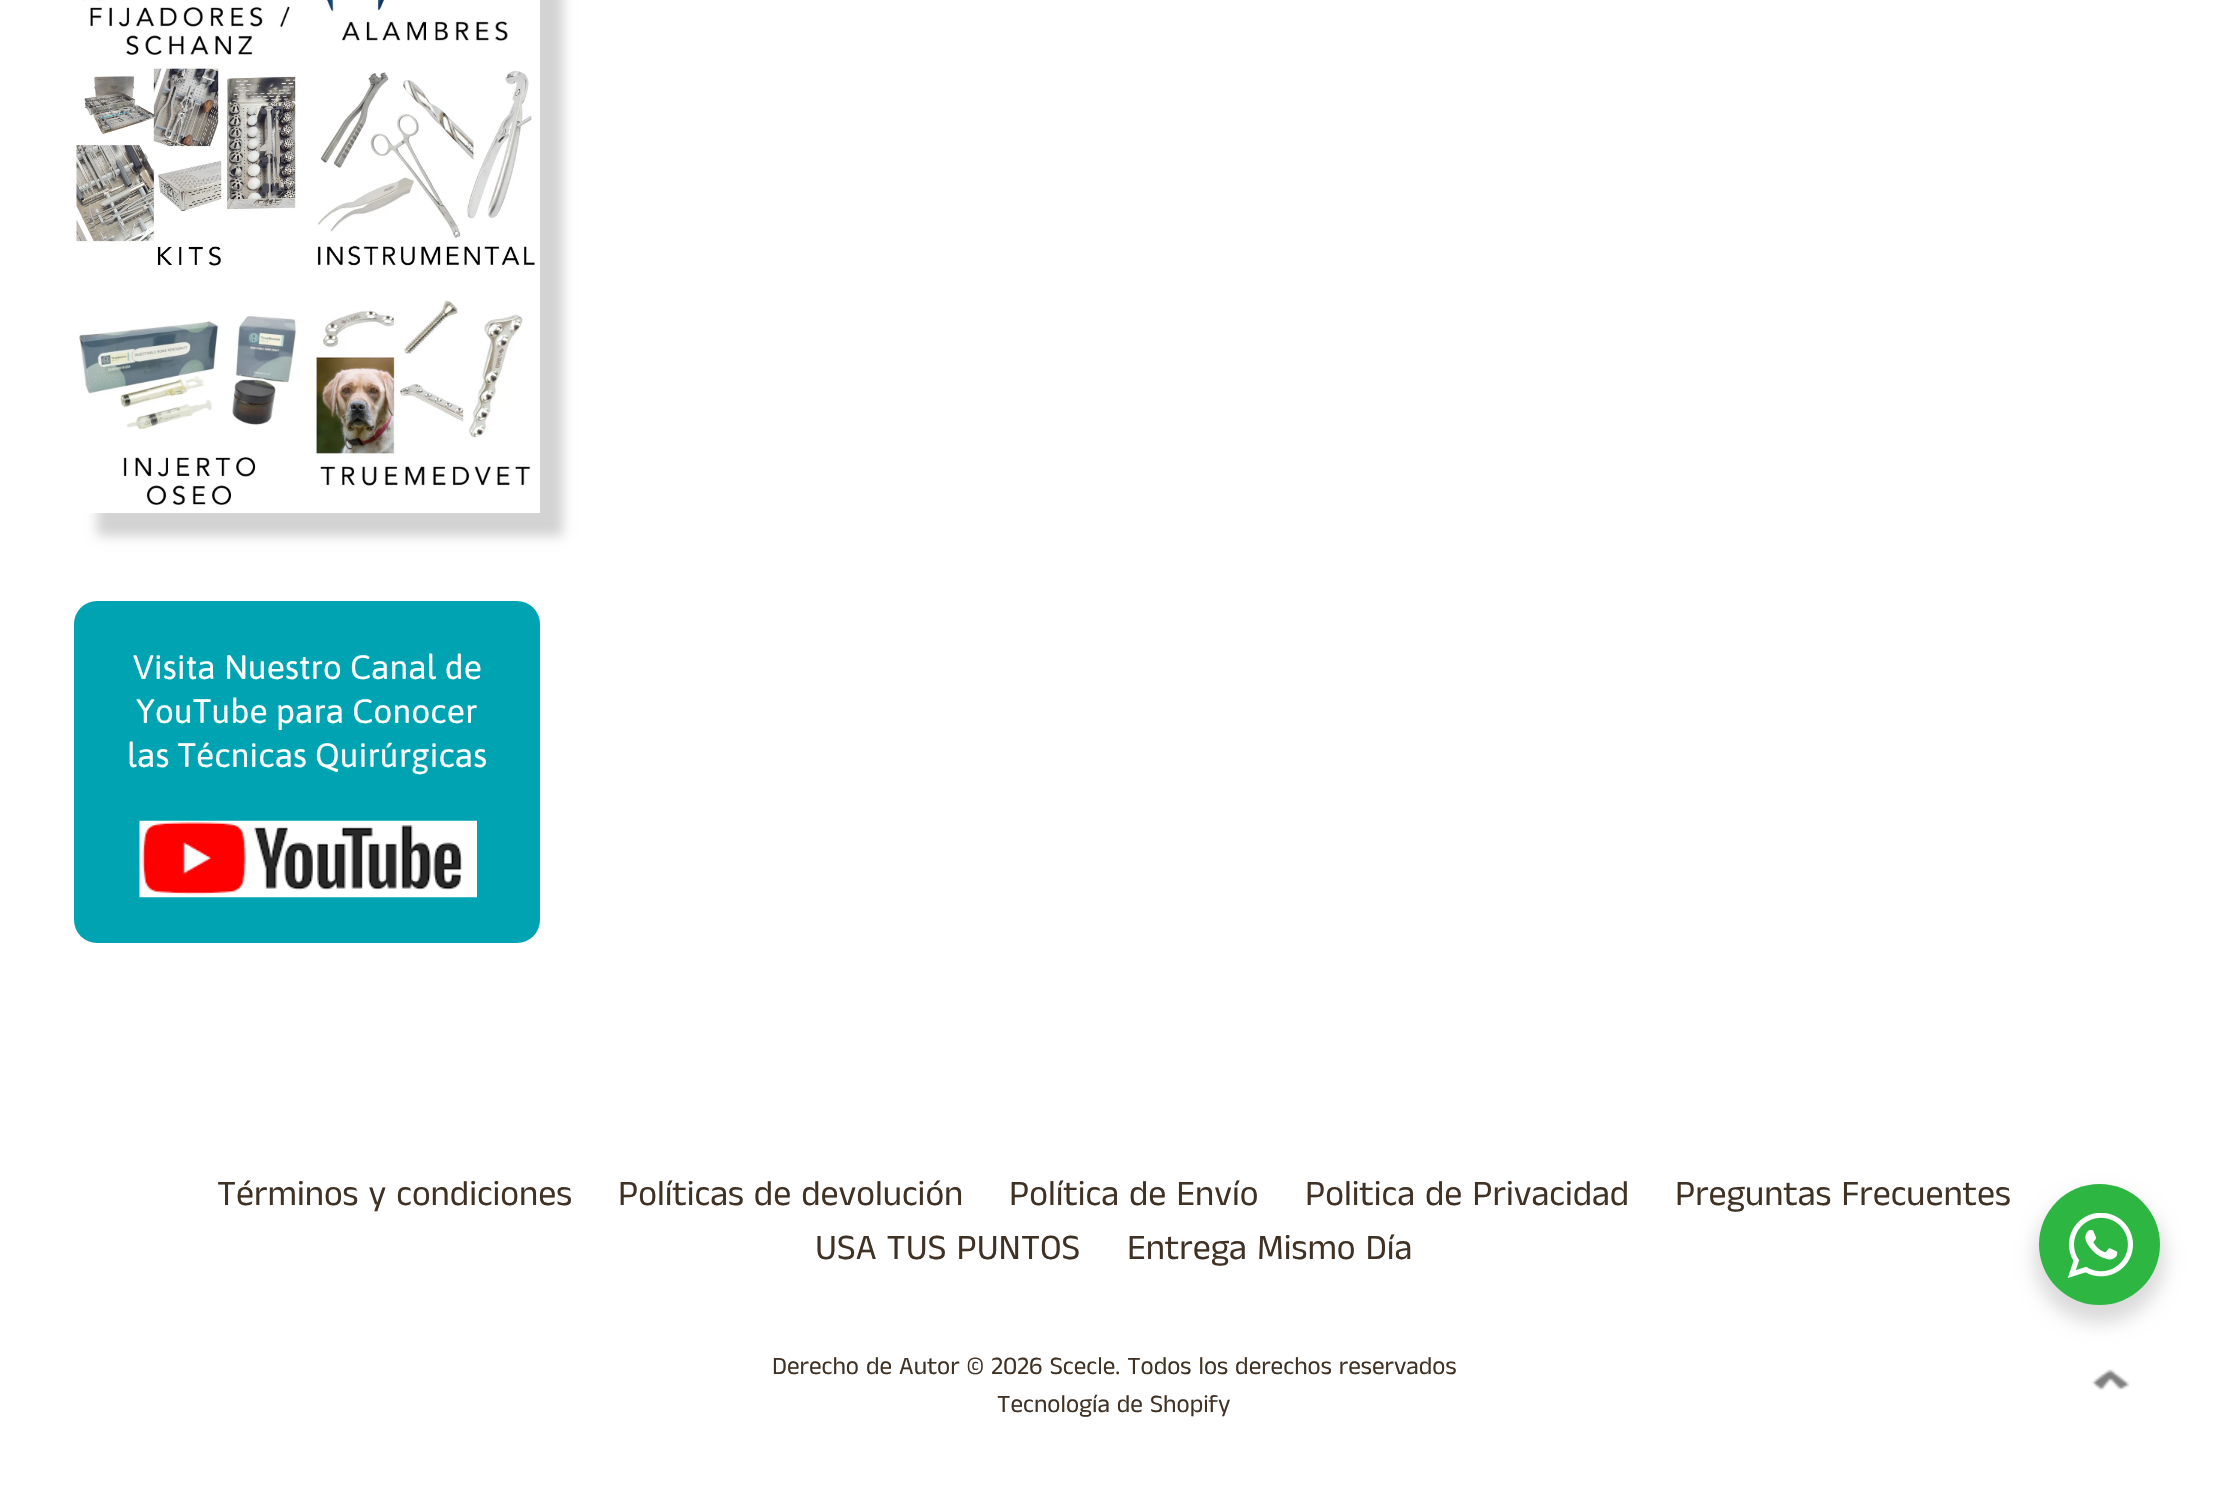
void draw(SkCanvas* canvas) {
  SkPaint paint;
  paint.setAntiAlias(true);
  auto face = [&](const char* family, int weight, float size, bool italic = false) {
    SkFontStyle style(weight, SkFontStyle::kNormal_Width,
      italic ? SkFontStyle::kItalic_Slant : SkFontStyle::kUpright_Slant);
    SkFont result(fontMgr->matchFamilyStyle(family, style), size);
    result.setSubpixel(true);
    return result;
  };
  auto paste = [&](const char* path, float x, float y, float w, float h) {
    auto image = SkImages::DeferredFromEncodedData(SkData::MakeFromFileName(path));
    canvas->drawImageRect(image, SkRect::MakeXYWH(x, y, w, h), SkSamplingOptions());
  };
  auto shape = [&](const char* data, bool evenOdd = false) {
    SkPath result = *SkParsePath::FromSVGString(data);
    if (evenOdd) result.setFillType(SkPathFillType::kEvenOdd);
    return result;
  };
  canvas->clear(0xffffffff);
  canvas->save();
  canvas->clipPath(shape("M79 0H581V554H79ZM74-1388H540V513H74Z", true), true);
  paint.setColor(0xffd3d3d3);
  paint.setMaskFilter(SkMaskFilter::MakeBlur(kNormal_SkBlurStyle, 5.5f));
  canvas->drawRect(SkRect::MakeXYWH(97, -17, 466, 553), paint);
  paint.setMaskFilter(nullptr);
  canvas->restore();
  paste("img/1.png", 82, 0, 208, 56);
  paste("img/2.png", 326, 0, 182, 41);
  paste("img/3.png", 76, 67, 221, 199);
  paste("img/4.png", 317, 70, 218, 196);
  paste("img/5.png", 78, 316, 219, 189);
  paste("img/6.png", 313, 300, 218, 186);
  paint.setColor(0xff00a3b1);
  canvas->drawRoundRect(SkRect::MakeXYWH(74, 601, 466, 342), 23, 23, paint);
  paste("img/7.png", 139, 820, 338, 78);
  paste("img/8.png", 2091, 1369, 39, 22);
  paint.setColor(0x24000000);
  paint.setMaskFilter(SkMaskFilter::MakeBlur(kNormal_SkBlurStyle, 9));
  canvas->drawRoundRect(SkRect::MakeXYWH(2034, 1193, 131, 130), 65, 65, paint);
  paint.setMaskFilter(nullptr);
  paint.setColor(0xff2db742);
  canvas->drawCircle(2099.5f, 1244.5f, 60.5f, paint);
  paste("img/9.png", 2068, 1213, 65, 65);
  auto f0 = face("Asap", 400, 33.75f);
  paint.setColor(0xffffffff);
  {
    const struct { const char* s; float x, y; } items[] = {
      {"Visita Nuestro Canal de", 133, 679},
      {"YouTube para Conocer", 136, 723},
      {"las Técnicas Quirúrgicas", 127, 767},
    };
    for (auto [s, x, y] : items) {
      canvas->drawString(s, x, y, f0, paint);
    }
  }
  auto f1 = face("Anek Tamil", 400, 36);
  paint.setColor(0xff403125);
  {
    const struct { const char* s; float x, y; } items[] = {
      {"Términos y condiciones", 217, 1205},
      {"Políticas de devolución", 618, 1205},
      {"Política de Envío", 1009, 1205},
      {"Politica de Privacidad", 1305, 1205},
      {"Preguntas Frecuentes", 1675, 1205},
      {"USA TUS PUNTOS", 815, 1259},
      {"Entrega Mismo Día", 1127, 1259},
    };
    for (auto [s, x, y] : items) {
      canvas->drawString(s, x, y, f1, paint);
    }
  }
  auto f2 = face("Anek Tamil", 400, 25.2f);
  canvas->drawString("Derecho de Autor © 2026 Scecle. Todos los derechos reservados", 772, 1374, f2, paint);
  canvas->drawString("Tecnología de Shopify", 997, 1412, f2, paint);
}
